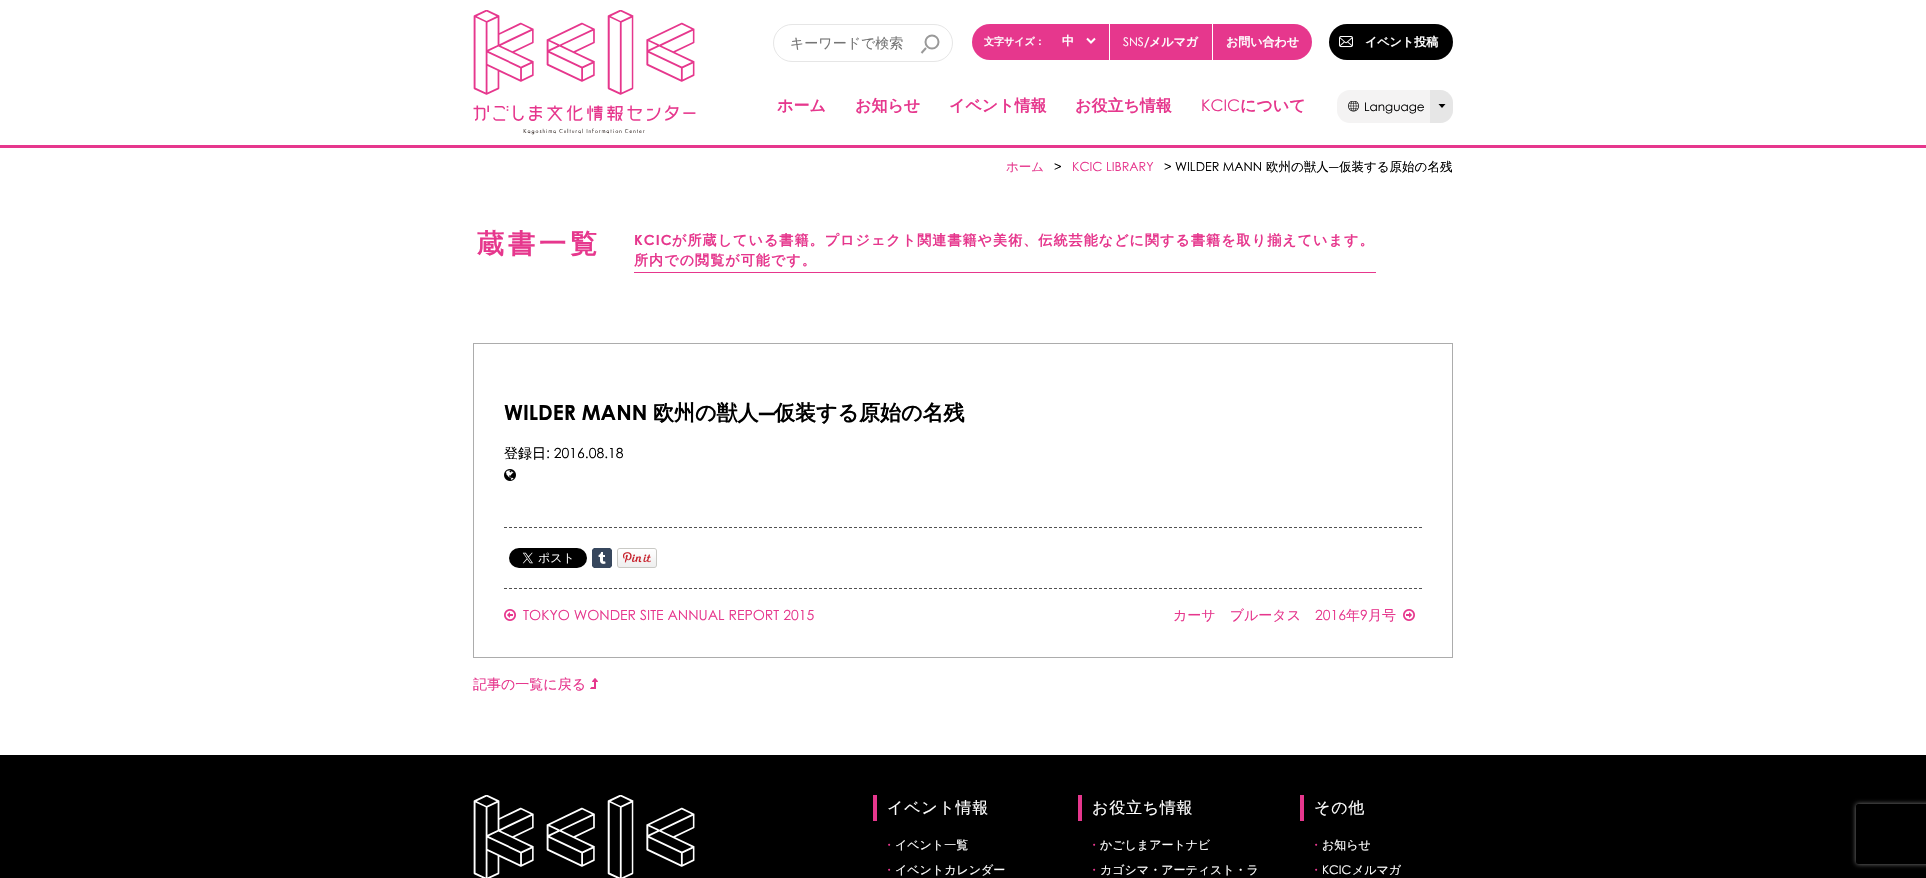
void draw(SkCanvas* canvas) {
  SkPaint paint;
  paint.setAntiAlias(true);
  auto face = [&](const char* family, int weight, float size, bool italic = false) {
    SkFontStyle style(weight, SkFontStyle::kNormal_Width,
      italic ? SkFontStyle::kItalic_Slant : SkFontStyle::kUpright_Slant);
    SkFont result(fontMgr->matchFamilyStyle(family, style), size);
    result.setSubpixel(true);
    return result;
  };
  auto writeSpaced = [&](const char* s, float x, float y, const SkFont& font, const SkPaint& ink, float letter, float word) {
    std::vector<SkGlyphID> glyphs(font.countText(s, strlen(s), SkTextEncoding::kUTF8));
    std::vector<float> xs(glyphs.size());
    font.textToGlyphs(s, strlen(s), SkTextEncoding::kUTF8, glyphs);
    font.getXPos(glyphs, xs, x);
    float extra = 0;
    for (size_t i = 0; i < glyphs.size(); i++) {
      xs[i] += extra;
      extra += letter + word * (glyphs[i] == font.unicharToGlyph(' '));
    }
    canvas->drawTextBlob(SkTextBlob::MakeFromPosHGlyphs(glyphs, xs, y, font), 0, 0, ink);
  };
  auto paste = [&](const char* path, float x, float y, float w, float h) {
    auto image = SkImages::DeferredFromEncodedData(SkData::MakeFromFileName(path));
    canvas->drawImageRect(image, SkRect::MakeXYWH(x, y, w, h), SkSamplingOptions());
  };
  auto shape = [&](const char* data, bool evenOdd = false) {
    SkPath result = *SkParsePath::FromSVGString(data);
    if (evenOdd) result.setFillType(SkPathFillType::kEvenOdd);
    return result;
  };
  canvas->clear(0xffffffff);
  paint.setColor(0xffe6378d);
  canvas->drawRect(SkRect::MakeXYWH(0, 145, 1926, 3), paint);
  paste("img/1.png", 473, 10, 223, 125);
  paint.setStroke(true);
  paint.setStrokeWidth(2);
  paint.setColor(0xff999999);
  canvas->drawCircle(932, 42, 6.5f, paint);
  canvas->drawPath(shape("M926 48L921.5 53"), paint);
  paint.setStrokeWidth(1);
  paint.setColor(0xffe6e6e6);
  canvas->drawRoundRect(SkRect::MakeXYWH(773.5f, 24.5f, 179, 37), 18.5f, 18.5f, paint);
  paint.setStroke(false);
  paint.setColor(0xffe6378d);
  canvas->drawRoundRect(SkRect::MakeXYWH(972, 24, 340, 36), 18, 18, paint);
  paint.setStroke(true);
  paint.setStrokeWidth(2);
  paint.setColor(0xffffffff);
  canvas->drawPath(shape("M1087 38.5L1091 42.5L1095 38.5"), paint);
  paint.setStroke(false);
  canvas->drawRect(SkRect::MakeXYWH(1109, 24, 1, 36), paint);
  canvas->drawRect(SkRect::MakeXYWH(1212, 24, 1, 36), paint);
  paint.setColor(0xff000000);
  canvas->drawRoundRect(SkRect::MakeXYWH(1329, 24, 124, 36), 18, 18, paint);
  paste("img/2.png", 1339, 36, 14, 12);
  paint.setColor(0xfff4f3f3);
  canvas->drawRoundRect(SkRect::MakeXYWH(1337, 90, 116, 33), 13, 13, paint);
  paste("img/3.png", 1348, 101, 11, 11);
  paint.setColor(0xffe6e6e6);
  canvas->drawPath(shape("M1430 90H1440C1447 90 1453 96 1453 103V110C1453 117 1447 123 1440 123H1430Z"), paint);
  paint.setColor(0xff000000);
  canvas->drawPath(shape("M1445.5 104H1438.5L1442 108Z"), paint);
  paint.setColor(0xffe6378d);
  canvas->drawRect(SkRect::MakeXYWH(634, 272, 742, 1), paint);
  paint.setStroke(true);
  paint.setStrokeWidth(1);
  paint.setColor(0xffacacac);
  canvas->drawRect(SkRect::MakeXYWH(473.5f, 343.5f, 979, 314), paint);
  paste("img/4.png", 504, 469, 12, 12);
  paint.setColor(0xff525252);
  paint.setPathEffect(SkDashPathEffect::Make({{3, 2}}, 0));
  canvas->drawPath(shape("M504 527.5H1422"), paint);
  paint.setPathEffect(nullptr);
  paint.setPathEffect(SkDashPathEffect::Make({{3, 2}}, 0));
  canvas->drawPath(shape("M504 588.5H1422"), paint);
  paint.setPathEffect(nullptr);
  paste("img/5.png", 509, 548, 78, 20);
  paste("img/6.png", 592, 548, 20, 20);
  paste("img/7.png", 617, 548, 40, 20);
  paste("img/8.png", 504, 609, 12, 12);
  paste("img/9.png", 1403, 609, 12, 12);
  paste("img/10.png", 590, 678, 8, 11);
  paint.setStroke(false);
  paint.setColor(0xff000000);
  canvas->drawRect(SkRect::MakeXYWH(0, 755, 1926, 123), paint);
  paste("img/11.png", 473, 795, 222, 83);
  {
    const struct { float x, y, w, h; SkColor color; } items[] = {
      {873, 795, 4, 26, 0xffe6378d},
      {1078, 795, 4, 26, 0xffe6378d},
      {1300, 795, 4, 26, 0xffe6378d},
    };
    for (auto [x, y, w, h, color] : items) {
      paint.setColor(color);
      canvas->drawRect(SkRect::MakeXYWH(x, y, w, h), paint);
    }
  }
  canvas->save();
  canvas->clipPath(shape("M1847 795H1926V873H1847ZM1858 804H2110C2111 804 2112 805 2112 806V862C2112 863 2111 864 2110 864H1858C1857 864 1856 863 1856 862V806C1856 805 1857 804 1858 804Z", true), true);
  paint.setColor(0xff808080);
  paint.setMaskFilter(SkMaskFilter::MakeBlur(kNormal_SkBlurStyle, 2.5f));
  canvas->drawRoundRect(SkRect::MakeXYWH(1856, 804, 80, 60), 2, 2, paint);
  paint.setMaskFilter(nullptr);
  canvas->restore();
  auto f0 = face("WenQuanYi Zen Hei", 500, 14);
  paint.setColor(0xff757575);
  canvas->drawString("キーワードで検索", 790, 48, f0, paint);
  auto f1 = face("WenQuanYi Zen Hei", 700, 10);
  paint.setColor(0xffffffff);
  canvas->drawString("文字サイズ：", 984, 45, f1, paint);
  auto f2 = face("WenQuanYi Zen Hei", 700, 12);
  canvas->drawString("中", 1062, 45, f2, paint);
  auto f3 = face("Century Gothic", 400, 12);
  canvas->drawString("SNS", 1123, 46, f3, paint);
  auto f4 = face("Century Gothic", 700, 12);
  canvas->drawString("/", 1144, 46, f4, paint);
  {
    const struct { const char* s; float x, y; } items[] = {
      {"メルマガ", 1149, 46},
      {"お問い合わせ", 1226, 46},
      {"イベント投稿", 1365, 46},
    };
    for (auto [s, x, y] : items) {
      canvas->drawString(s, x, y, f2, paint);
    }
  }
  auto f5 = face("WenQuanYi Zen Hei", 700, 16);
  paint.setColor(0xffe6378d);
  {
    const struct { const char* s; float x, y; } items[] = {
      {"ホーム", 777, 111},
      {"お知らせ", 855, 111},
      {"イベント情報", 949, 111},
      {"お役立ち情報", 1075, 111},
    };
    for (auto [s, x, y] : items) {
      canvas->drawString(s, x, y, f5, paint);
    }
  }
  auto f6 = face("Century Gothic", 400, 16);
  canvas->drawString("KCIC", 1201, 111, f6, paint);
  canvas->drawString("について", 1240, 111, f5, paint);
  paint.setColor(0xff000000);
  canvas->drawString("Language", 1364, 111, f3, paint);
  auto f7 = face("WenQuanYi Zen Hei", 500, 12.5f);
  paint.setColor(0xffe6378d);
  canvas->drawString("ホーム", 1006, 171, f7, paint);
  auto f8 = face("Century Gothic", 400, 12.5f);
  paint.setColor(0xff000000);
  canvas->drawString(">", 1054, 171, f8, paint);
  paint.setColor(0xffe6378d);
  canvas->drawString("KCIC LIBRARY", 1072, 171, f8, paint);
  paint.setColor(0xff000000);
  canvas->drawString("> WILDER MANN", 1164, 171, f8, paint);
  canvas->drawString("欧州の獣人", 1266, 171, f7, paint);
  canvas->drawString("―", 1329, 171, f8, paint);
  canvas->drawString("仮装する原始の名残", 1339, 171, f7, paint);
  auto f9 = face("WenQuanYi Zen Hei", 700, 27);
  paint.setColor(0xffe6378d);
  writeSpaced("蔵書一覧", 477, 253, f9, paint, 4, 0);
  auto f10 = face("Century Gothic", 700, 14);
  writeSpaced("KCIC", 634, 245, f10, paint, 1.1f, 0);
  auto f11 = face("WenQuanYi Zen Hei", 700, 14);
  writeSpaced("が所蔵している書籍。プロジェクト関連書籍や美術、伝統芸能などに関する書籍を取り揃えています。", 672, 245, f11, paint, 1.1f, 0);
  writeSpaced("所内での閲覧が可能です。", 634, 265, f11, paint, 1.1f, 0);
  auto f12 = face("Century Gothic", 700, 21);
  paint.setColor(0xff000000);
  canvas->drawString("WILDER MANN", 504, 420, f12, paint);
  auto f13 = face("WenQuanYi Zen Hei", 700, 21);
  canvas->drawString("欧州の獣人", 653, 420, f13, paint);
  canvas->drawString("―", 759, 420, f12, paint);
  canvas->drawString("仮装する原始の名残", 774, 420, f13, paint);
  canvas->drawString("登録日", 504, 458, f0, paint);
  auto f14 = face("Century Gothic", 400, 14);
  canvas->drawString(": 2016.08.18", 546, 458, f14, paint);
  paint.setColor(0xffe6378d);
  canvas->drawString("TOKYO WONDER SITE ANNUAL REPORT 2015", 523, 620, f14, paint);
  canvas->drawString("カーサ　ブルータス", 1173, 620, f0, paint);
  canvas->drawString("2016", 1315, 620, f14, paint);
  canvas->drawString("年", 1346, 620, f0, paint);
  canvas->drawString("9", 1360, 620, f14, paint);
  canvas->drawString("月号", 1368, 620, f0, paint);
  canvas->drawString("記事の一覧に戻る", 473, 689, f0, paint);
  auto f15 = face("WenQuanYi Zen Hei", 500, 16);
  paint.setColor(0xffffffff);
  writeSpaced("イベント情報", 887, 813, f15, paint, 0.75f, 0);
  auto f16 = face("WenQuanYi Zen Hei", 500, 12);
  paint.setColor(0xffe6378d);
  canvas->drawString("・", 883, 849, f16, paint);
  paint.setColor(0xffffffff);
  canvas->drawString("イベント一覧", 895, 849, f16, paint);
  paint.setColor(0xffe6378d);
  canvas->drawString("・", 883, 874, f16, paint);
  paint.setColor(0xffffffff);
  canvas->drawString("イベントカレンダー", 895, 874, f16, paint);
  writeSpaced("お役立ち情報", 1092, 813, f15, paint, 0.75f, 0);
  paint.setColor(0xffe6378d);
  canvas->drawString("・", 1088, 849, f16, paint);
  paint.setColor(0xffffffff);
  canvas->drawString("かごしまアートナビ", 1100, 849, f16, paint);
  paint.setColor(0xffe6378d);
  canvas->drawString("・", 1088, 874, f16, paint);
  paint.setColor(0xffffffff);
  canvas->drawString("カゴシマ・アーティスト・ラ", 1100, 874, f16, paint);
  writeSpaced("その他", 1314, 813, f15, paint, 0.75f, 0);
  paint.setColor(0xffe6378d);
  canvas->drawString("・", 1310, 849, f16, paint);
  paint.setColor(0xffffffff);
  canvas->drawString("お知らせ", 1322, 849, f16, paint);
  paint.setColor(0xffe6378d);
  canvas->drawString("・", 1310, 874, f16, paint);
  paint.setColor(0xffffffff);
  canvas->drawString("KCIC", 1322, 874, f3, paint);
  canvas->drawString("メルマガ", 1352, 874, f16, paint);
}
